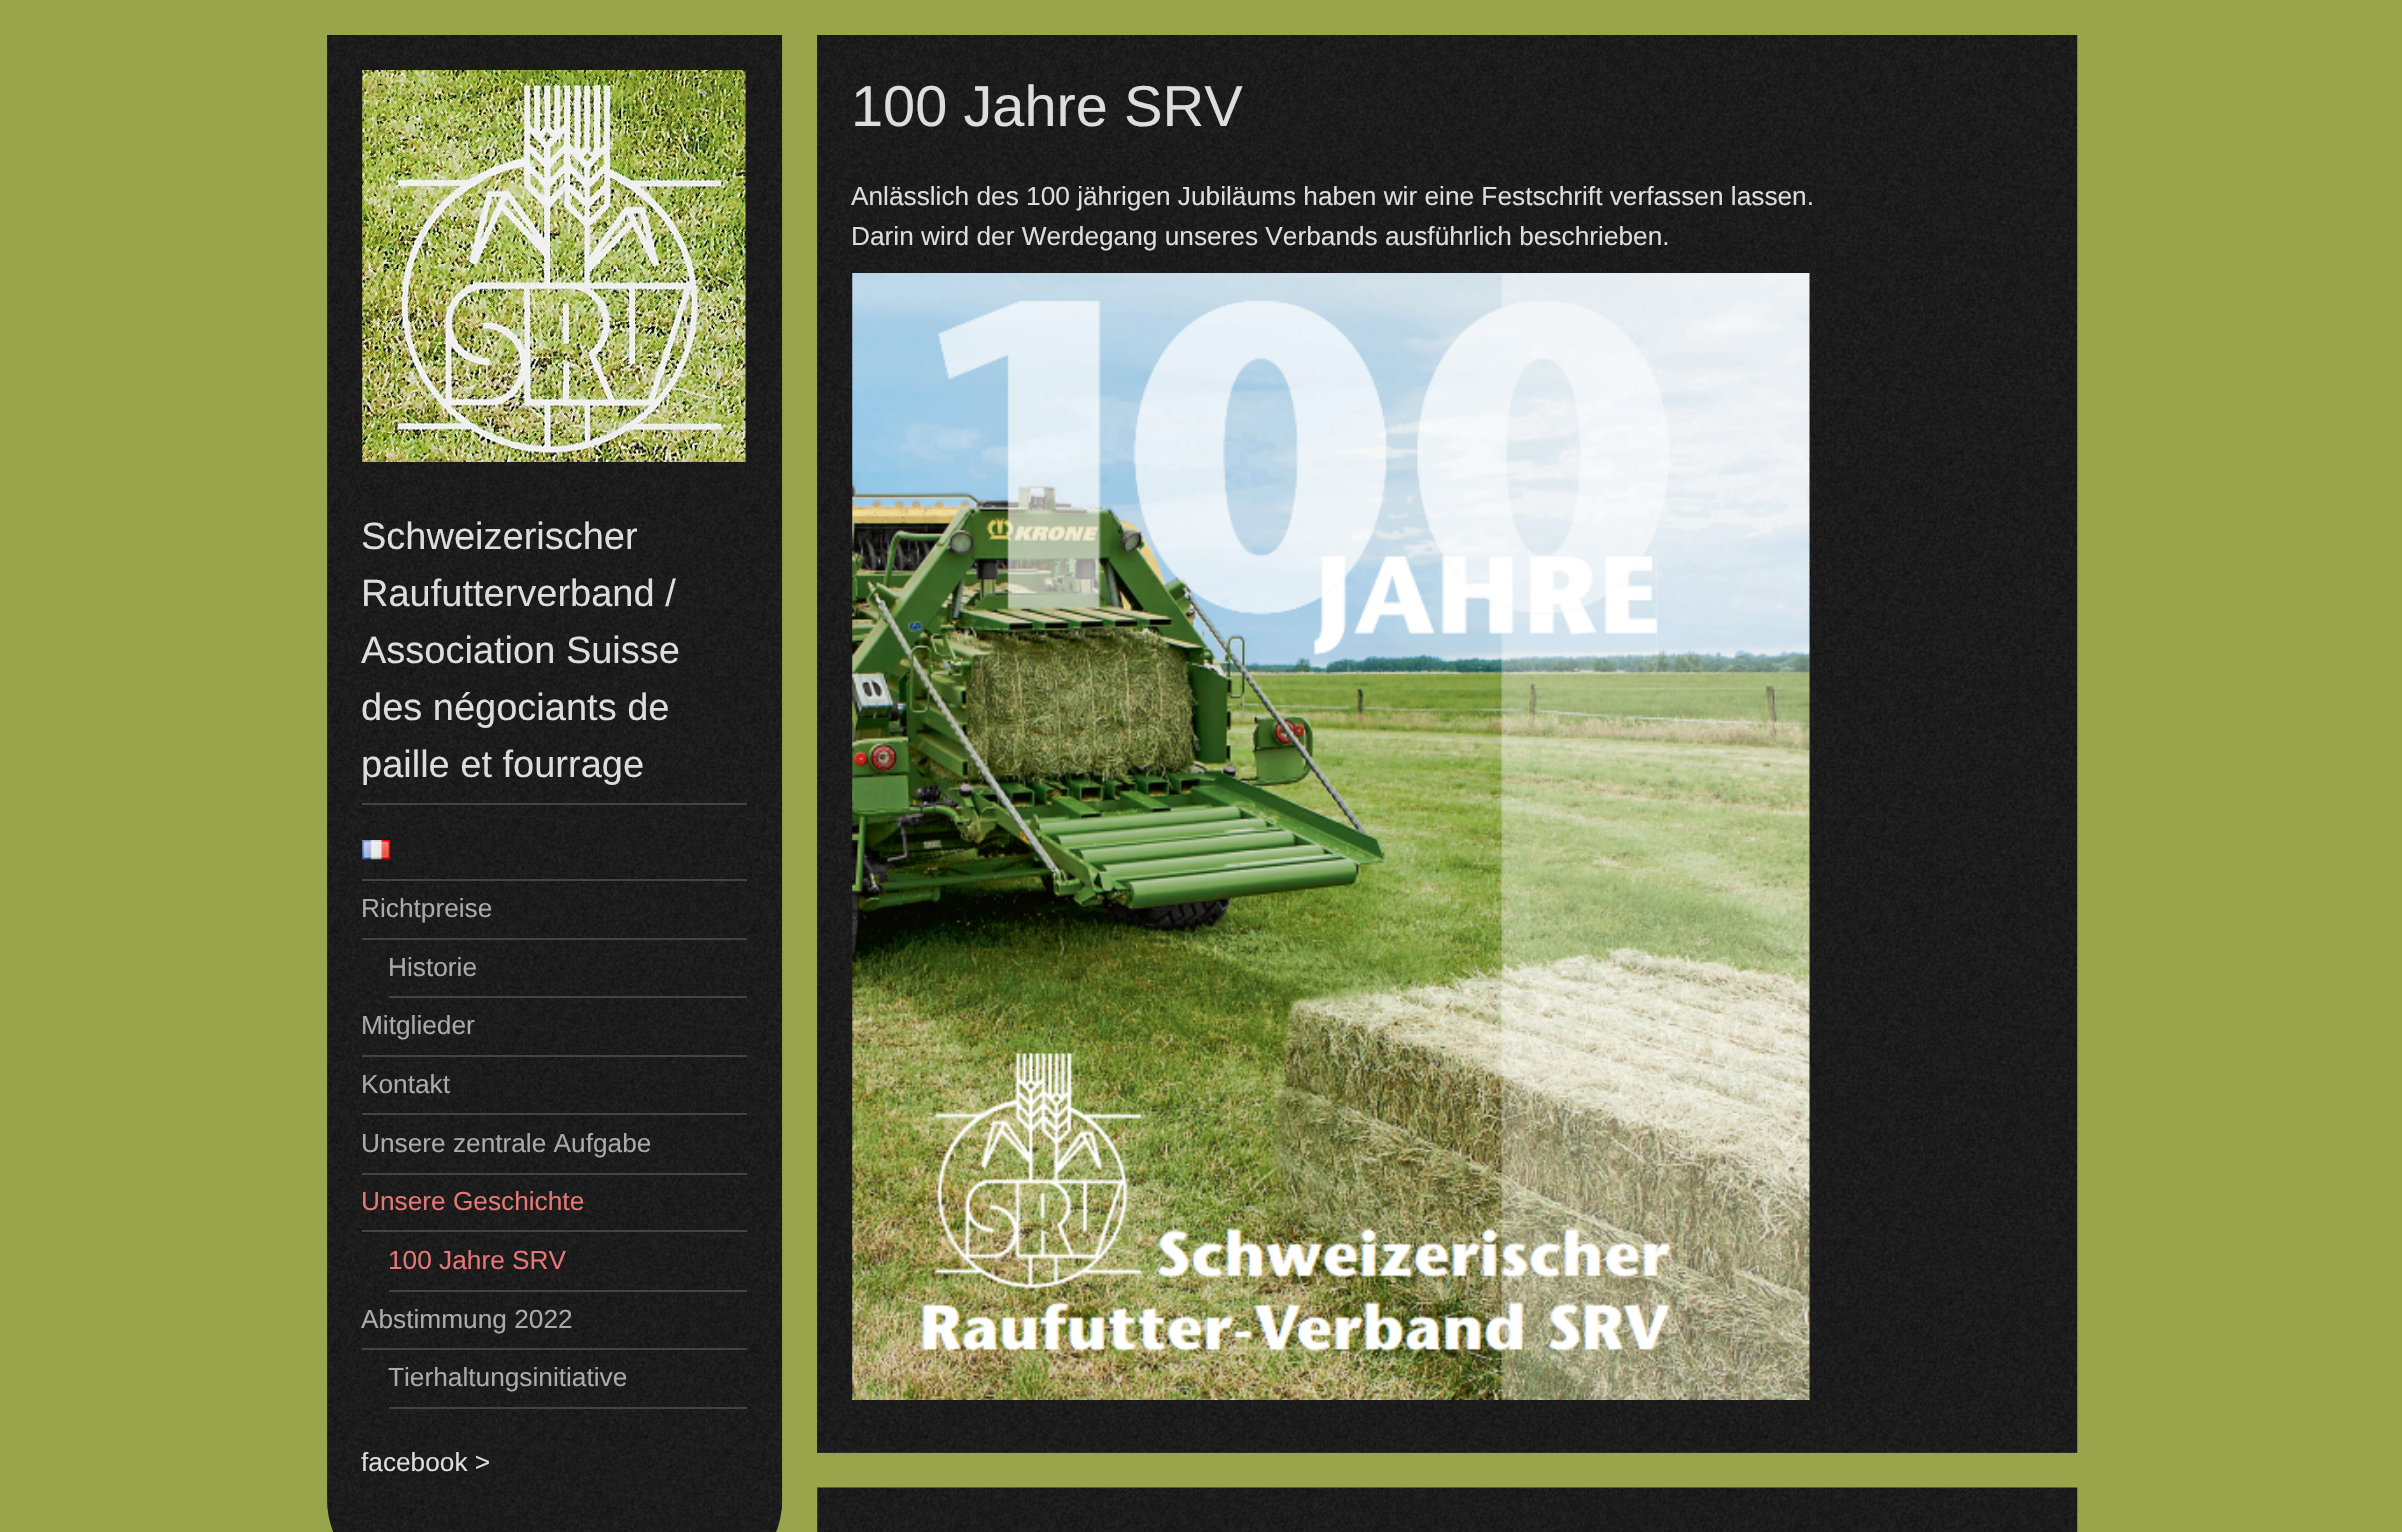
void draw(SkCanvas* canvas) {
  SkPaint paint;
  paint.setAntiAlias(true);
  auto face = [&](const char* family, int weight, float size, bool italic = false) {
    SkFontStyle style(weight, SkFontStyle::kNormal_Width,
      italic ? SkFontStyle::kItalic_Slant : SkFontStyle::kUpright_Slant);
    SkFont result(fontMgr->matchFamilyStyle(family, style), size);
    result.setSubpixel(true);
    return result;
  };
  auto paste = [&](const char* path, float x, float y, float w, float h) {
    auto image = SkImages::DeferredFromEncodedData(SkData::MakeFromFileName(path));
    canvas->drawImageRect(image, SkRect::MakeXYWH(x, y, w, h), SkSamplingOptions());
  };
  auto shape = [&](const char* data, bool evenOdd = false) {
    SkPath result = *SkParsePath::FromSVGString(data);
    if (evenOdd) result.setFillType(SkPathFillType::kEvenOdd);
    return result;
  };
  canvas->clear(0xff98a54a);
  paint.setColor(0xff333333);
  canvas->drawRect(SkRect::MakeXYWH(817, 35, 1260, 1418), paint);
  paste("img/1.png", 817, 35, 1261, 1418);
  paste("img/2.png", 852, 273, 958, 1127);
  canvas->drawPath(shape("M327 35H782V1499C782 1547.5 742.5 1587 694 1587H415C366.5 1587 327 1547.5 327 1499Z"), paint);
  paste("img/3.png", 327, 35, 456, 1497);
  paste("img/4.png", 362, 70, 384, 392);
  paint.setColor(0xff444444);
  canvas->drawRect(SkRect::MakeXYWH(362, 803, 385, 2), paint);
  canvas->drawRect(SkRect::MakeXYWH(362, 879, 385, 2), paint);
  paste("img/5.png", 362, 840, 29, 20);
  {
    const struct { float x, y, w, h; SkColor color; } items[] = {
      {362, 938, 385, 2, 0xff444444},
      {389, 996, 358, 2, 0xff444444},
      {362, 1055, 385, 2, 0xff444444},
      {362, 1113, 385, 2, 0xff444444},
      {362, 1173, 385, 2, 0xff444444},
      {362, 1230, 385, 2, 0xff444444},
      {389, 1290, 358, 2, 0xff444444},
      {362, 1348, 385, 2, 0xff444444},
      {389, 1407, 358, 2, 0xff444444},
    };
    for (auto [x, y, w, h, color] : items) {
      paint.setColor(color);
      canvas->drawRect(SkRect::MakeXYWH(x, y, w, h), paint);
    }
  }
  paste("img/6.png", 817, 1487, 1261, 45);
  auto f0 = face("Liberation Sans", 400, 57.75f);
  paint.setColor(0xffdddddd);
  canvas->drawString("100 Jahre SRV", 851, 126, f0, paint);
  auto f1 = face("Liberation Sans", 400, 26.25f);
  canvas->drawString("Anlässlich des 100 jährigen Jubiläums haben wir eine Festschrift verfassen lassen.", 851, 205, f1, paint);
  canvas->drawString("Darin wird der Werdegang unseres Verbands ausführlich beschrieben.", 851, 245, f1, paint);
  auto f2 = face("Liberation Sans", 400, 38);
  {
    const struct { const char* s; float x, y; } items[] = {
      {"Schweizerischer", 361, 549},
      {"Raufutterverband /", 361, 606},
      {"Association Suisse", 361, 663},
      {"des négociants de", 361, 720},
      {"paille et fourrage", 361, 777},
    };
    for (auto [s, x, y] : items) {
      canvas->drawString(s, x, y, f2, paint);
    }
  }
  paint.setColor(0xffaaaaaa);
  {
    const struct { const char* s; float x, y; } items[] = {
      {"Richtpreise", 361, 917},
      {"Historie", 388, 976},
      {"Mitglieder", 361, 1034},
      {"Kontakt", 361, 1093},
      {"Unsere zentrale Aufgabe", 361, 1152},
    };
    for (auto [s, x, y] : items) {
      canvas->drawString(s, x, y, f1, paint);
    }
  }
  paint.setColor(0xffe77776);
  canvas->drawString("Unsere Geschichte", 361, 1210, f1, paint);
  canvas->drawString("100 Jahre SRV", 388, 1269, f1, paint);
  paint.setColor(0xffaaaaaa);
  canvas->drawString("Abstimmung 2022", 361, 1328, f1, paint);
  canvas->drawString("Tierhaltungsinitiative", 388, 1386, f1, paint);
  paint.setColor(0xffdddddd);
  canvas->drawString("facebook >", 361, 1471, f1, paint);
}
